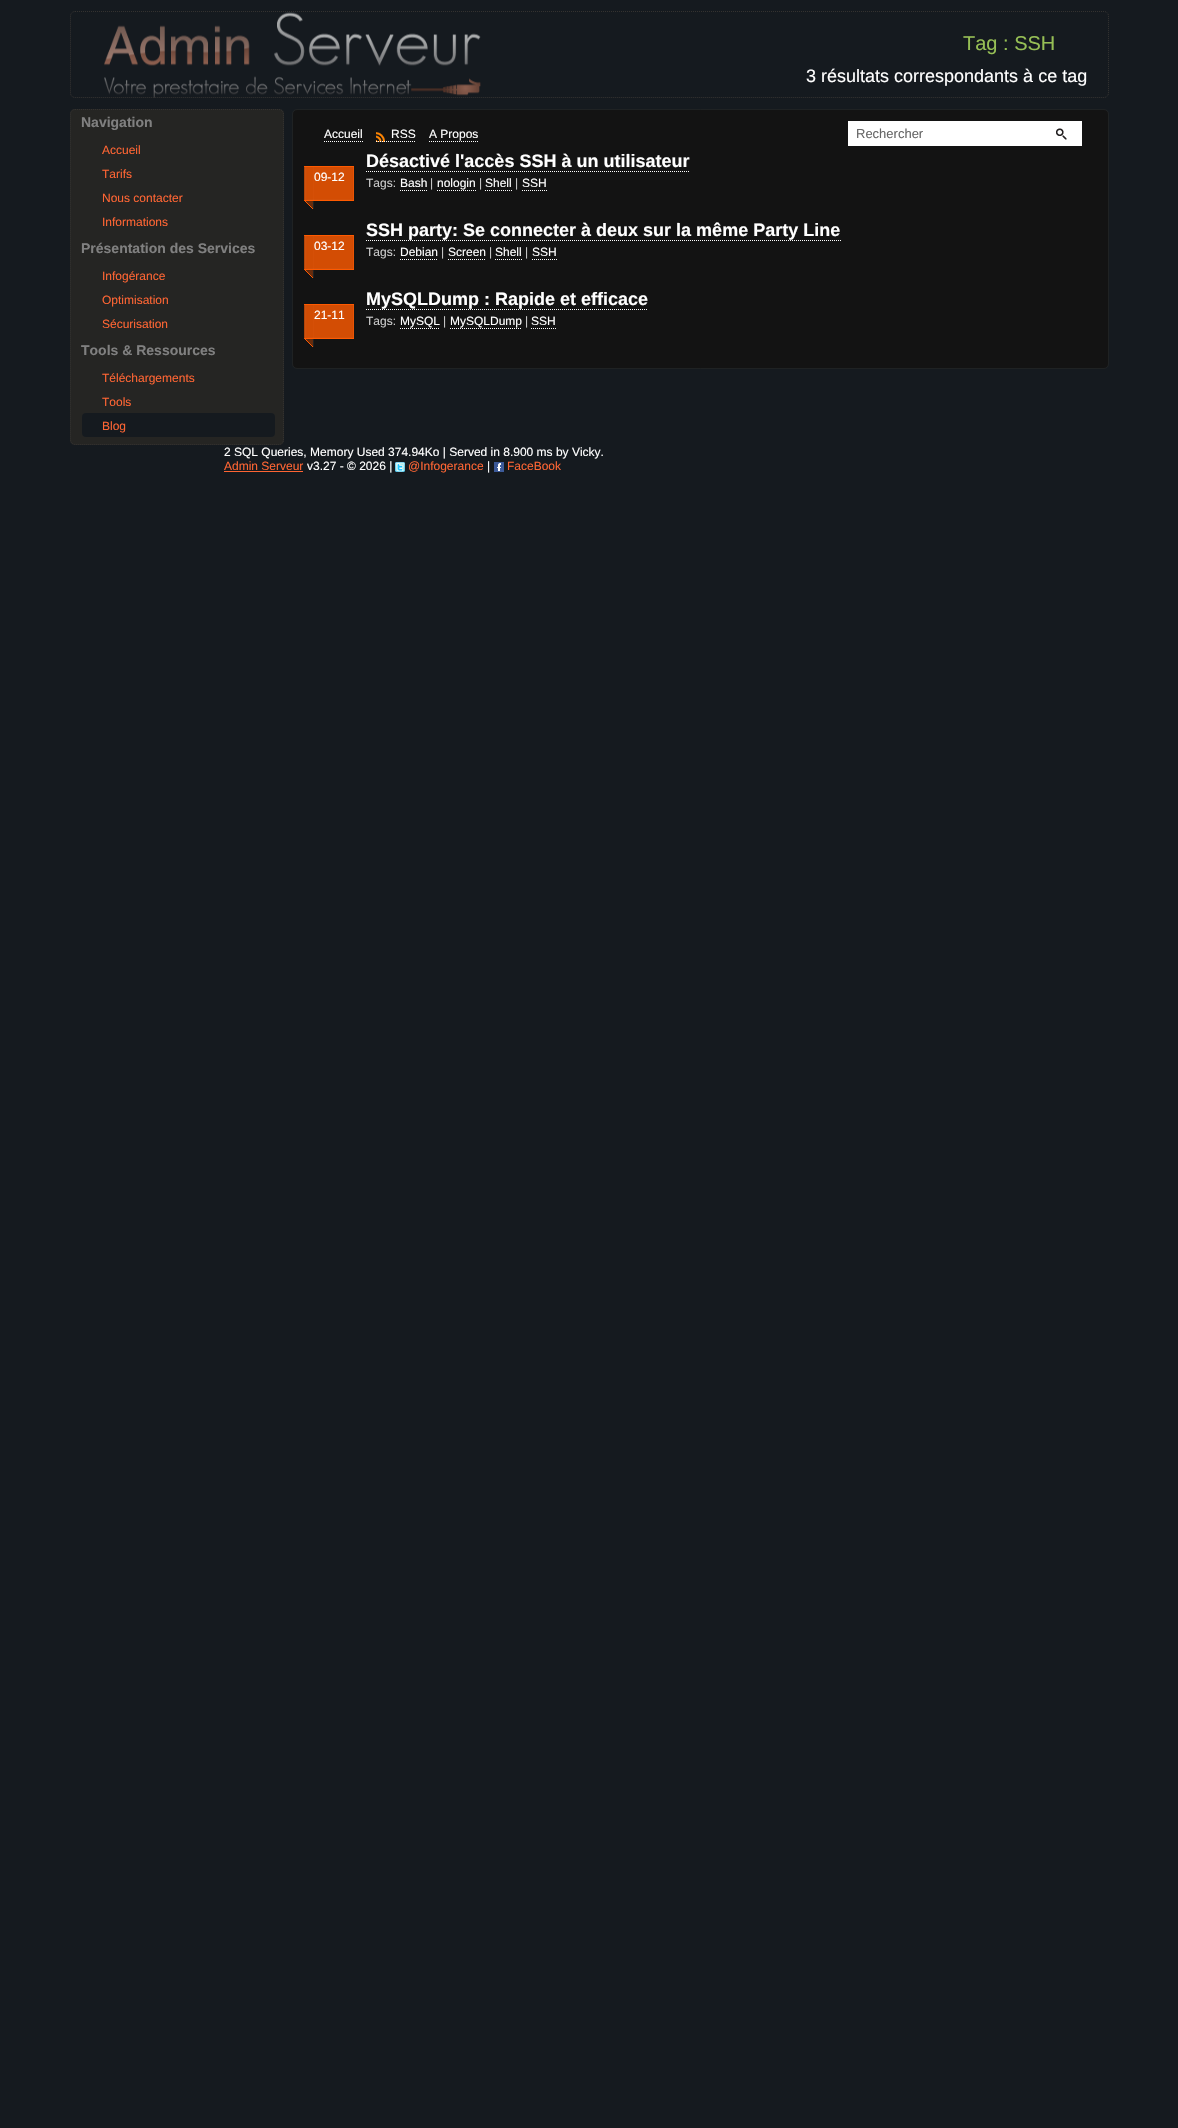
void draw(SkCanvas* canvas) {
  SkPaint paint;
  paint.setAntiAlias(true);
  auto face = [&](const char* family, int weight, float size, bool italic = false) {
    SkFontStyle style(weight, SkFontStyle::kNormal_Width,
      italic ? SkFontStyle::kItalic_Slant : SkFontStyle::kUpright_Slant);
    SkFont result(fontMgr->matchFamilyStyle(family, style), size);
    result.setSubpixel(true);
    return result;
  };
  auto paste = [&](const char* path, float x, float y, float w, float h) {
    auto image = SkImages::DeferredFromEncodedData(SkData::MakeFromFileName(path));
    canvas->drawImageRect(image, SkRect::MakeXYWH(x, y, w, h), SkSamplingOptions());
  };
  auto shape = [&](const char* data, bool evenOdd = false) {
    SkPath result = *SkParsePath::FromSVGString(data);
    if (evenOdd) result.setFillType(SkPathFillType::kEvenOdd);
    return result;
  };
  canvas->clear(0xff151a1f);
  paste("img/1.png", 104, 12, 377, 86);
  paint.setStroke(true);
  paint.setStrokeWidth(1);
  paint.setColor(0xff343230);
  paint.setPathEffect(SkDashPathEffect::Make({{1, 1}}, 0));
  canvas->drawPath(shape("M75 11.5H1104C1106.5 11.5 1108.5 13.5 1108.5 16V93C1108.5 95.5 1106.5 97.5 1104 97.5H75C72.5 97.5 70.5 95.5 70.5 93V16C70.5 13.5 72.5 11.5 75 11.5Z"), paint);
  paint.setPathEffect(nullptr);
  paint.setStroke(false);
  paint.setColor(0xff252523);
  canvas->drawRoundRect(SkRect::MakeXYWH(70, 109, 214, 336), 5, 5, paint);
  paint.setStroke(true);
  paint.setColor(0xff343230);
  paint.setPathEffect(SkDashPathEffect::Make({{1, 1}}, 0));
  canvas->drawPath(shape("M75 109.5H279C281.5 109.5 283.5 111.5 283.5 114V440C283.5 442.5 281.5 444.5 279 444.5H75C72.5 444.5 70.5 442.5 70.5 440V114C70.5 111.5 72.5 109.5 75 109.5Z"), paint);
  paint.setPathEffect(nullptr);
  paint.setStroke(false);
  paint.setColor(0xff151a1f);
  canvas->drawRoundRect(SkRect::MakeXYWH(82, 413, 193, 24), 4, 4, paint);
  paint.setColor(0xff131313);
  canvas->drawRoundRect(SkRect::MakeXYWH(292.5f, 109.5f, 816, 259), 4.5f, 4.5f, paint);
  paint.setStroke(true);
  paint.setColor(0xff1f2223);
  canvas->drawRoundRect(SkRect::MakeXYWH(292.5f, 109.5f, 816, 259), 4.5f, 4.5f, paint);
  paint.setColor(0xffffffff);
  paint.setPathEffect(SkDashPathEffect::Make({{1, 1}}, 0));
  canvas->drawPath(shape("M324 141.5H363"), paint);
  paint.setPathEffect(nullptr);
  paste("img/2.png", 376, 132, 9, 10);
  paint.setPathEffect(SkDashPathEffect::Make({{1, 1}}, 0));
  canvas->drawPath(shape("M376 141.5H416"), paint);
  paint.setPathEffect(nullptr);
  paint.setPathEffect(SkDashPathEffect::Make({{1, 1}}, 0));
  canvas->drawPath(shape("M429 141.5H478"), paint);
  paint.setPathEffect(nullptr);
  paint.setStroke(false);
  canvas->drawRect(SkRect::MakeXYWH(848, 121, 234, 25), paint);
  paste("img/3.png", 1056, 128, 11, 12);
  paint.setStroke(true);
  paint.setPathEffect(SkDashPathEffect::Make({{1, 1}}, 0));
  canvas->drawPath(shape("M366 171.5H690"), paint);
  paint.setPathEffect(nullptr);
  paste("img/4.png", 304, 166, 50, 43);
  paint.setPathEffect(SkDashPathEffect::Make({{1, 1}}, 0));
  canvas->drawPath(shape("M400 190.5H427"), paint);
  paint.setPathEffect(nullptr);
  paint.setPathEffect(SkDashPathEffect::Make({{1, 1}}, 0));
  canvas->drawPath(shape("M437 190.5H476"), paint);
  paint.setPathEffect(nullptr);
  paint.setPathEffect(SkDashPathEffect::Make({{1, 1}}, 0));
  canvas->drawPath(shape("M485 190.5H512"), paint);
  paint.setPathEffect(nullptr);
  paint.setPathEffect(SkDashPathEffect::Make({{1, 1}}, 0));
  canvas->drawPath(shape("M522 190.5H547"), paint);
  paint.setPathEffect(nullptr);
  paint.setPathEffect(SkDashPathEffect::Make({{1, 1}}, 0));
  canvas->drawPath(shape("M366 240.5H841"), paint);
  paint.setPathEffect(nullptr);
  paste("img/4.png", 304, 235, 50, 43);
  paint.setPathEffect(SkDashPathEffect::Make({{1, 1}}, 0));
  canvas->drawPath(shape("M400 259.5H438"), paint);
  paint.setPathEffect(nullptr);
  paint.setPathEffect(SkDashPathEffect::Make({{1, 1}}, 0));
  canvas->drawPath(shape("M448 259.5H486"), paint);
  paint.setPathEffect(nullptr);
  paint.setPathEffect(SkDashPathEffect::Make({{1, 1}}, 0));
  canvas->drawPath(shape("M495 259.5H522"), paint);
  paint.setPathEffect(nullptr);
  paint.setPathEffect(SkDashPathEffect::Make({{1, 1}}, 0));
  canvas->drawPath(shape("M532 259.5H557"), paint);
  paint.setPathEffect(nullptr);
  paint.setPathEffect(SkDashPathEffect::Make({{1, 1}}, 0));
  canvas->drawPath(shape("M366 309.5H648"), paint);
  paint.setPathEffect(nullptr);
  paste("img/4.png", 304, 304, 50, 43);
  paint.setPathEffect(SkDashPathEffect::Make({{1, 1}}, 0));
  canvas->drawPath(shape("M400 328.5H440"), paint);
  paint.setPathEffect(nullptr);
  paint.setPathEffect(SkDashPathEffect::Make({{1, 1}}, 0));
  canvas->drawPath(shape("M450 328.5H522"), paint);
  paint.setPathEffect(nullptr);
  paint.setPathEffect(SkDashPathEffect::Make({{1, 1}}, 0));
  canvas->drawPath(shape("M531 328.5H556"), paint);
  paint.setPathEffect(nullptr);
  paint.setStroke(false);
  paint.setColor(0xffff6533);
  canvas->drawRect(SkRect::MakeXYWH(224, 471, 79, 1), paint);
  paste("img/5.png", 395, 462, 10, 10);
  paste("img/6.png", 494, 462, 10, 10);
  auto f0 = face("Liberation Sans", 400, 20);
  paint.setColor(0xff96bf55);
  canvas->drawString("Tag : SSH", 963, 50, f0, paint);
  auto f1 = face("Liberation Sans", 400, 18);
  paint.setColor(0xffffffff);
  canvas->drawString("3 résultats correspondants à ce tag", 806, 82, f1, paint);
  auto f2 = face("Liberation Sans", 700, 14);
  paint.setColor(0xff808080);
  canvas->drawString("Navigation", 81, 127, f2, paint);
  auto f3 = face("Liberation Sans", 400, 12);
  paint.setColor(0xffff6533);
  {
    const struct { const char* s; float x, y; } items[] = {
      {"Accueil", 102, 154},
      {"Tarifs", 102, 178},
      {"Nous contacter", 102, 202},
      {"Informations", 102, 226},
    };
    for (auto [s, x, y] : items) {
      canvas->drawString(s, x, y, f3, paint);
    }
  }
  paint.setColor(0xff808080);
  canvas->drawString("Présentation des Services", 81, 253, f2, paint);
  paint.setColor(0xffff6533);
  {
    const struct { const char* s; float x, y; } items[] = {
      {"Infogérance", 102, 280},
      {"Optimisation", 102, 304},
      {"Sécurisation", 102, 328},
    };
    for (auto [s, x, y] : items) {
      canvas->drawString(s, x, y, f3, paint);
    }
  }
  paint.setColor(0xff808080);
  canvas->drawString("Tools & Ressources", 81, 355, f2, paint);
  paint.setColor(0xffff6533);
  {
    const struct { const char* s; float x, y; } items[] = {
      {"Téléchargements", 102, 382},
      {"Tools", 102, 406},
      {"Blog", 102, 430},
    };
    for (auto [s, x, y] : items) {
      canvas->drawString(s, x, y, f3, paint);
    }
  }
  paint.setColor(0xffffffff);
  {
    const struct { const char* s; float x, y; } items[] = {
      {"Accueil", 324, 138},
      {"RSS", 391, 138},
      {"A Propos", 429, 138},
    };
    for (auto [s, x, y] : items) {
      canvas->drawString(s, x, y, f3, paint);
    }
  }
  auto f4 = face("Liberation Sans", 400, 13);
  paint.setColor(0xff666666);
  canvas->drawString("Rechercher", 856, 138, f4, paint);
  auto f5 = face("Liberation Sans", 700, 18);
  paint.setColor(0xffffffff);
  canvas->drawString("Désactivé l'accès SSH à un utilisateur", 366, 167, f5, paint);
  canvas->drawString("09-12", 314, 181, f3, paint);
  paint.setColor(0xffcccccc);
  canvas->drawString("Tags:", 366, 187, f3, paint);
  paint.setColor(0xffffffff);
  canvas->drawString("Bash", 400, 187, f3, paint);
  paint.setColor(0xffcccccc);
  canvas->drawString("|", 430, 187, f3, paint);
  paint.setColor(0xffffffff);
  canvas->drawString("nologin", 437, 187, f3, paint);
  paint.setColor(0xffcccccc);
  canvas->drawString("|", 479, 187, f3, paint);
  paint.setColor(0xffffffff);
  canvas->drawString("Shell", 485, 187, f3, paint);
  paint.setColor(0xffcccccc);
  canvas->drawString("|", 515, 187, f3, paint);
  paint.setColor(0xffffffff);
  canvas->drawString("SSH", 522, 187, f3, paint);
  canvas->drawString("SSH party: Se connecter à deux sur la même Party Line", 366, 236, f5, paint);
  canvas->drawString("03-12", 314, 250, f3, paint);
  paint.setColor(0xffcccccc);
  canvas->drawString("Tags:", 366, 256, f3, paint);
  paint.setColor(0xffffffff);
  canvas->drawString("Debian", 400, 256, f3, paint);
  paint.setColor(0xffcccccc);
  canvas->drawString("|", 441, 256, f3, paint);
  paint.setColor(0xffffffff);
  canvas->drawString("Screen", 448, 256, f3, paint);
  paint.setColor(0xffcccccc);
  canvas->drawString("|", 489, 256, f3, paint);
  paint.setColor(0xffffffff);
  canvas->drawString("Shell", 495, 256, f3, paint);
  paint.setColor(0xffcccccc);
  canvas->drawString("|", 525, 256, f3, paint);
  paint.setColor(0xffffffff);
  canvas->drawString("SSH", 532, 256, f3, paint);
  canvas->drawString("MySQLDump : Rapide et efficace", 366, 305, f5, paint);
  canvas->drawString("21-11", 314, 319, f3, paint);
  paint.setColor(0xffcccccc);
  canvas->drawString("Tags:", 366, 325, f3, paint);
  paint.setColor(0xffffffff);
  canvas->drawString("MySQL", 400, 325, f3, paint);
  paint.setColor(0xffcccccc);
  canvas->drawString("|", 443, 325, f3, paint);
  paint.setColor(0xffffffff);
  canvas->drawString("MySQLDump", 450, 325, f3, paint);
  paint.setColor(0xffcccccc);
  canvas->drawString("|", 525, 325, f3, paint);
  paint.setColor(0xffffffff);
  canvas->drawString("SSH", 531, 325, f3, paint);
  canvas->drawString("2 SQL Queries, Memory Used 374.94Ko | Served in 8.900 ms by Vicky.", 224, 456, f3, paint);
  paint.setColor(0xffff6533);
  canvas->drawString("Admin Serveur", 224, 470, f3, paint);
  paint.setColor(0xffffffff);
  canvas->drawString("v3.27 - © 2026 |", 307, 470, f3, paint);
  paint.setColor(0xffff6533);
  canvas->drawString("@Infogerance", 408, 470, f3, paint);
  paint.setColor(0xffffffff);
  canvas->drawString("|", 487, 470, f3, paint);
  paint.setColor(0xffff6533);
  canvas->drawString("FaceBook", 507, 470, f3, paint);
}
